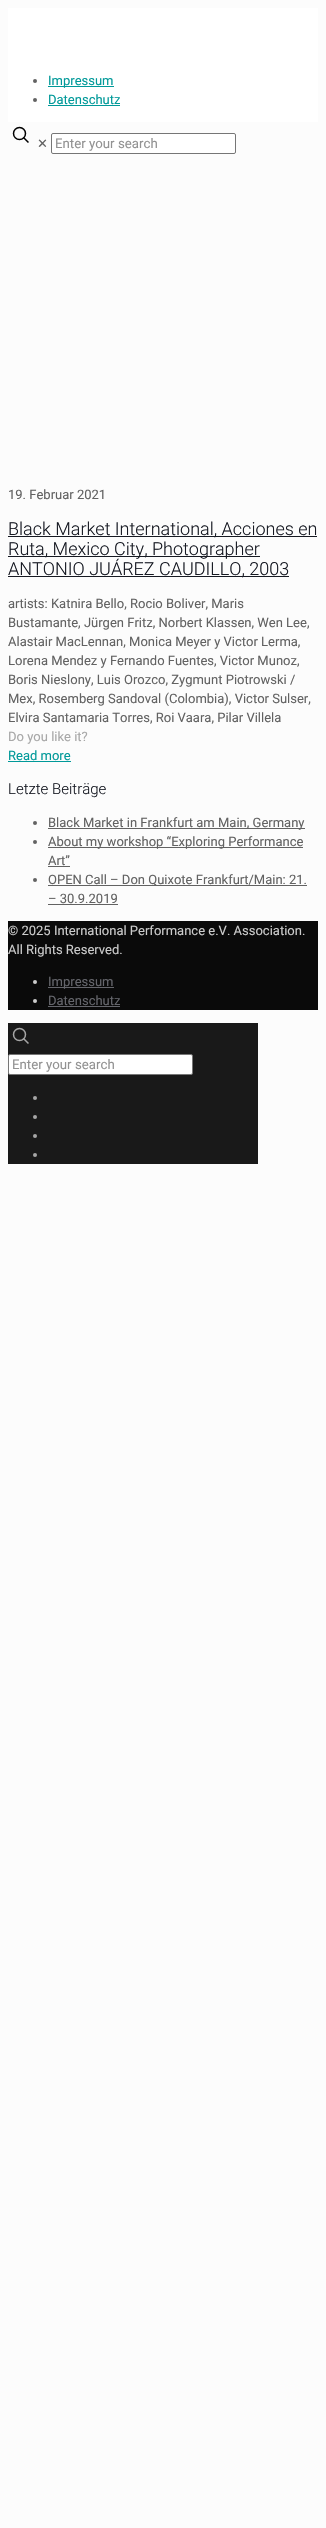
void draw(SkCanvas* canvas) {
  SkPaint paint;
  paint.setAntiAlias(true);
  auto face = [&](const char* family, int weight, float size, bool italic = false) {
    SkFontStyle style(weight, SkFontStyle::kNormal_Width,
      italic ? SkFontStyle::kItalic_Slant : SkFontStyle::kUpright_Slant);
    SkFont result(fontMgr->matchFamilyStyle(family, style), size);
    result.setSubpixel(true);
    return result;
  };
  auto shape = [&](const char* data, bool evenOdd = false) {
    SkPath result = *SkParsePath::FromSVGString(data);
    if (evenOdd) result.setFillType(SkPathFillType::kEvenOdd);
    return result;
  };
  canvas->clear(0xfffcfcfc);
  paint.setColor(0xffffffff);
  canvas->drawRect(SkRect::MakeXYWH(8, 8, 310, 114), paint);
  paint.setColor(0xff626262);
  canvas->drawCircle(35, 81, 2, paint);
  paint.setColor(0xff009999);
  canvas->drawRect(SkRect::MakeXYWH(48, 86, 66, 1), paint);
  paint.setColor(0xff626262);
  canvas->drawCircle(35, 100, 2, paint);
  paint.setColor(0xff009999);
  canvas->drawRect(SkRect::MakeXYWH(48, 105, 72, 1), paint);
  paint.setStroke(true);
  paint.setStrokeWidth(1.5f);
  paint.setColor(0xff000000);
  canvas->drawCircle(19.5f, 133.5f, 6, paint);
  canvas->drawPath(shape("M23.5 137.5L28.5 142.5"), paint);
  paint.setStroke(false);
  paint.setColor(0xffffffff);
  canvas->drawRoundRect(SkRect::MakeXYWH(51.5f, 133.5f, 184, 20), 1.5f, 1.5f, paint);
  paint.setStroke(true);
  paint.setStrokeWidth(1);
  paint.setColor(0xff767676);
  canvas->drawRoundRect(SkRect::MakeXYWH(51.5f, 133.5f, 184, 20), 1.5f, 1.5f, paint);
  paint.setStroke(false);
  {
    const struct { float x, y, w, h; SkColor color; } items[] = {
      {8, 536, 309, 1, 0xff161922},
      {8, 556, 252, 1, 0xff161922},
      {8, 576, 281, 1, 0xff161922},
      {8, 761, 63, 1, 0xff009999},
    };
    for (auto [x, y, w, h, color] : items) {
      paint.setColor(color);
      canvas->drawRect(SkRect::MakeXYWH(x, y, w, h), paint);
    }
  }
  paint.setColor(0xff626262);
  canvas->drawCircle(35, 823, 2, paint);
  canvas->drawRect(SkRect::MakeXYWH(48, 828, 257, 1), paint);
  canvas->drawCircle(35, 842, 2, paint);
  canvas->drawRect(SkRect::MakeXYWH(48, 847, 255, 1), paint);
  canvas->drawRect(SkRect::MakeXYWH(48, 866, 22, 1), paint);
  canvas->drawCircle(35, 880, 2, paint);
  {
    const struct { float x, y, w, h; SkColor color; } items[] = {
      {48, 885, 259, 1, 0xff626262},
      {48, 904, 70, 1, 0xff626262},
      {8, 921, 310, 89, 0xff0a0a0a},
    };
    for (auto [x, y, w, h, color] : items) {
      paint.setColor(color);
      canvas->drawRect(SkRect::MakeXYWH(x, y, w, h), paint);
    }
  }
  paint.setColor(0xffcccccc);
  canvas->drawCircle(35, 982, 2, paint);
  paint.setColor(0xff65666c);
  canvas->drawRect(SkRect::MakeXYWH(48, 987, 66, 1), paint);
  paint.setColor(0xffcccccc);
  canvas->drawCircle(35, 1001, 2, paint);
  paint.setColor(0xff65666c);
  canvas->drawRect(SkRect::MakeXYWH(48, 1006, 72, 1), paint);
  paint.setColor(0xff191919);
  canvas->drawRect(SkRect::MakeXYWH(8, 1023, 250, 141), paint);
  paint.setStroke(true);
  paint.setStrokeWidth(1.5f);
  paint.setColor(0xffa6a6a6);
  canvas->drawCircle(19.5f, 1034.5f, 6, paint);
  canvas->drawPath(shape("M23.5 1038.5L28.5 1043.5"), paint);
  paint.setStroke(false);
  paint.setColor(0xffffffff);
  canvas->drawRoundRect(SkRect::MakeXYWH(8.5f, 1054.5f, 184, 20), 1.5f, 1.5f, paint);
  paint.setStroke(true);
  paint.setStrokeWidth(1);
  paint.setColor(0xff767676);
  canvas->drawRoundRect(SkRect::MakeXYWH(8.5f, 1054.5f, 184, 20), 1.5f, 1.5f, paint);
  paint.setStroke(false);
  paint.setColor(0xffa6a6a6);
  canvas->drawCircle(35, 1098, 2, paint);
  canvas->drawCircle(35, 1117, 2, paint);
  canvas->drawCircle(35, 1136, 2, paint);
  canvas->drawCircle(35, 1155, 2, paint);
  auto f0 = face("Roboto", 400, 13);
  paint.setColor(0xff009999);
  canvas->drawString("Impressum", 48, 85, f0, paint);
  canvas->drawString("Datenschutz", 48, 104, f0, paint);
  auto f1 = face("DejaVu Sans", 400, 13);
  paint.setColor(0xff626262);
  canvas->drawString("✕", 37, 148, f1, paint);
  auto f2 = face("Roboto", 400, 13.25f);
  paint.setColor(0xff929292);
  canvas->drawString("Enter your search", 55, 148, f2, paint);
  paint.setColor(0xff626262);
  canvas->drawString("19. Februar 2021", 8, 499, f0, paint);
  auto f3 = face("Roboto", 300, 18);
  paint.setColor(0xff161922);
  {
    const struct { const char* s; float x, y; } items[] = {
      {"Black Market International, Acciones en", 8, 535},
      {"Ruta, Mexico City, Photographer", 8, 555},
      {"ANTONIO JUÁREZ CAUDILLO, 2003", 8, 575},
    };
    for (auto [s, x, y] : items) {
      canvas->drawString(s, x, y, f3, paint);
    }
  }
  paint.setColor(0xff626262);
  {
    const struct { const char* s; float x, y; } items[] = {
      {"artists: Katnira Bello, Rocio Boliver, Maris", 8, 608},
      {"Bustamante, Jürgen Fritz, Norbert Klassen, Wen Lee,", 8, 627},
      {"Alastair MacLennan, Monica Meyer y Victor Lerma,", 8, 646},
      {"Lorena Mendez y Fernando Fuentes, Victor Munoz,", 8, 665},
      {"Boris Nieslony, Luis Orozco, Zygmunt Piotrowski /", 8, 684},
      {"Mex, Rosemberg Sandoval (Colombia), Victor Sulser,", 8, 703},
      {"Elvira Santamaria Torres, Roi Vaara, Pilar Villela", 8, 722},
    };
    for (auto [s, x, y] : items) {
      canvas->drawString(s, x, y, f0, paint);
    }
  }
  paint.setColor(0xffa8a8a8);
  canvas->drawString("Do you like it?", 8, 741, f0, paint);
  paint.setColor(0xff009999);
  canvas->drawString("Read more", 8, 760, f0, paint);
  auto f4 = face("Roboto", 300, 15);
  paint.setColor(0xff161922);
  canvas->drawString("Letzte Beiträge", 8, 794, f4, paint);
  paint.setColor(0xff626262);
  {
    const struct { const char* s; float x, y; } items[] = {
      {"Black Market in Frankfurt am Main, Germany", 48, 827},
      {"About my workshop “Exploring Performance", 48, 846},
      {"Art”", 48, 865},
      {"OPEN Call – Don Quixote Frankfurt/Main: 21.", 48, 884},
      {"– 30.9.2019", 48, 903},
    };
    for (auto [s, x, y] : items) {
      canvas->drawString(s, x, y, f0, paint);
    }
  }
  paint.setColor(0xffcccccc);
  canvas->drawString("© 2025 International Performance e.V. Association.", 8, 935, f0, paint);
  canvas->drawString("All Rights Reserved.", 8, 954, f0, paint);
  paint.setColor(0xff65666c);
  canvas->drawString("Impressum", 48, 986, f0, paint);
  canvas->drawString("Datenschutz", 48, 1005, f0, paint);
  paint.setColor(0xff929292);
  canvas->drawString("Enter your search", 12, 1069, f2, paint);
}
